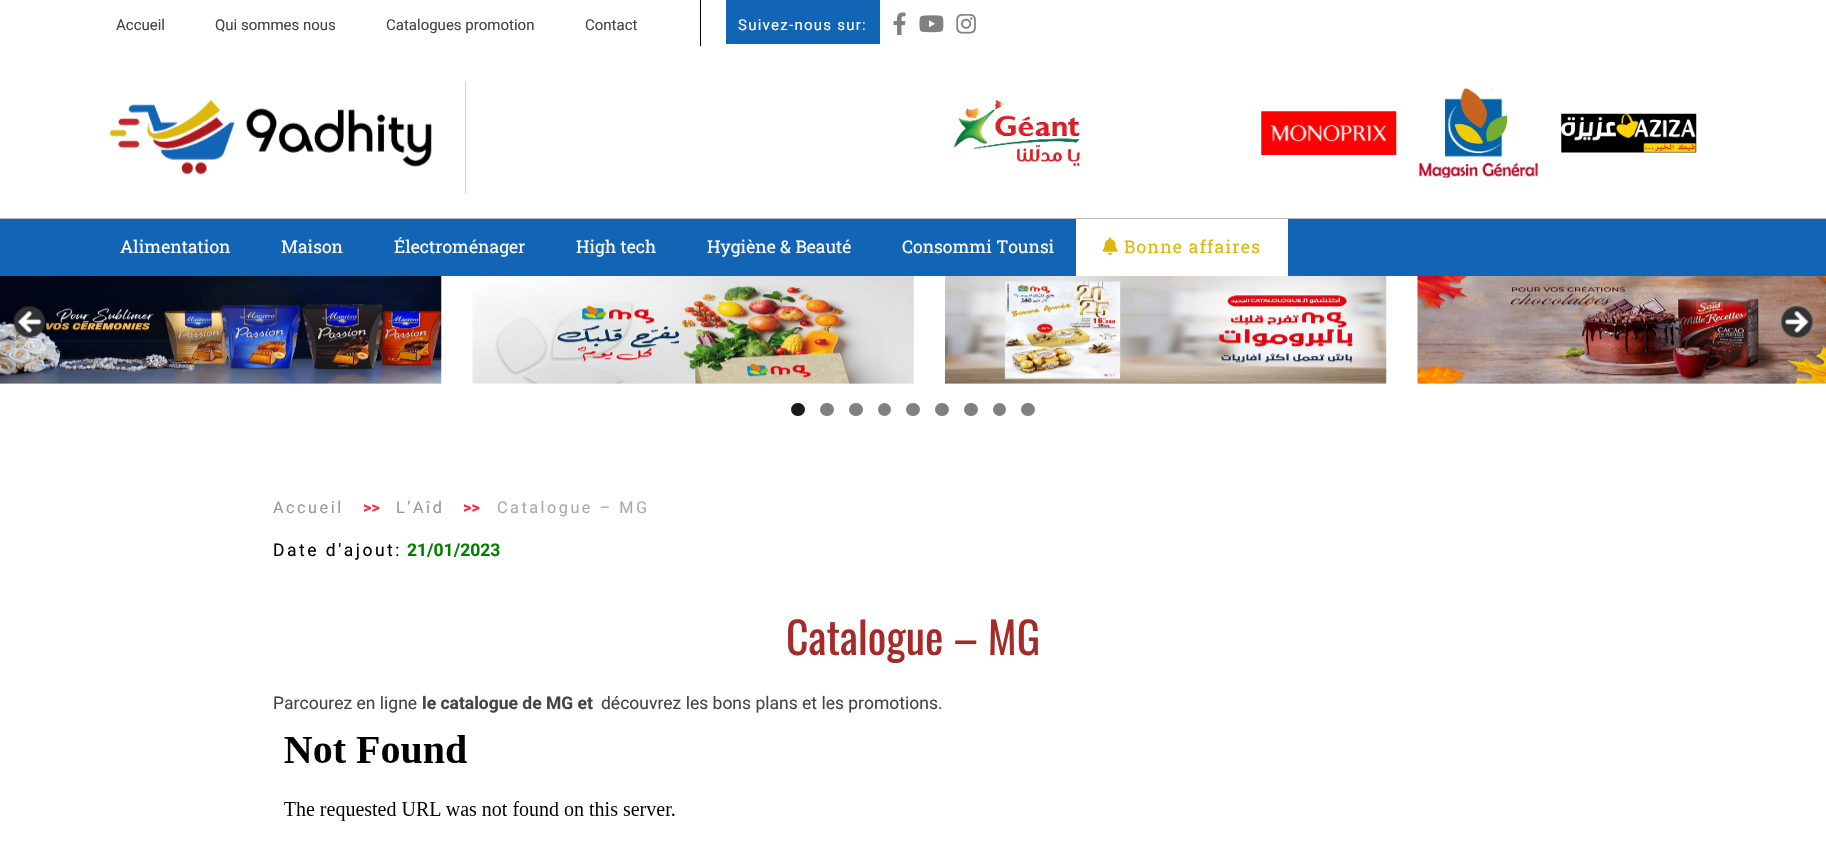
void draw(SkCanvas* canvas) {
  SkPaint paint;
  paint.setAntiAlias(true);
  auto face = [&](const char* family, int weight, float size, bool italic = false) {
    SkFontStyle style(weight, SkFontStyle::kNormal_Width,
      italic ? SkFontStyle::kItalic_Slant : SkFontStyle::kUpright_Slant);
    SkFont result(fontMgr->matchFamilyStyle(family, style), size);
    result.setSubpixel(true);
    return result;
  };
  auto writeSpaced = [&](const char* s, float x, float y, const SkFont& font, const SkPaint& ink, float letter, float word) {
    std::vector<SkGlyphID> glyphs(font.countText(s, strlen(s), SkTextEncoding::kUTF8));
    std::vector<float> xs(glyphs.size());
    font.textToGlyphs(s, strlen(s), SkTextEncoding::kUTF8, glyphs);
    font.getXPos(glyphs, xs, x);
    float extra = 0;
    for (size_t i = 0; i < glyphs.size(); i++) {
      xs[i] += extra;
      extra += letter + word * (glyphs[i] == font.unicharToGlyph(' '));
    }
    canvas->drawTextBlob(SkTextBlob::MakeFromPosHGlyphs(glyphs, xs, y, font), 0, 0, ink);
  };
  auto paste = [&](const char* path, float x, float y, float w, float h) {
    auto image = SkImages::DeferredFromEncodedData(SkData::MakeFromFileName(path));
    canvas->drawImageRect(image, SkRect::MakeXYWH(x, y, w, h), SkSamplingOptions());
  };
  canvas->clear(0xffffffff);
  paint.setColor(0xff000000);
  canvas->drawRect(SkRect::MakeXYWH(700, 0, 1, 46), paint);
  paint.setColor(0xff1264b5);
  canvas->drawRect(SkRect::MakeXYWH(726, 0, 154, 44), paint);
  paste("img/1.png", 893, 12, 13, 23);
  paste("img/2.png", 919, 15, 25, 18);
  paste("img/3.png", 956, 14, 20, 20);
  paint.setColor(0xffd1d1d1);
  canvas->drawRect(SkRect::MakeXYWH(465, 81, 1, 112), paint);
  paste("img/4.png", 110, 99, 322, 75);
  paste("img/5.png", 953, 100, 127, 67);
  paste("img/6.png", 1261, 111, 136, 44);
  paste("img/7.png", 1418, 88, 122, 90);
  paste("img/8.png", 1561, 113, 136, 40);
  {
    const struct { float x, y, w, h; SkColor color; } items[] = {
      {0, 219, 1826, 57, 0xff1264b5},
      {0, 218, 1826, 1, 0xffbbbbbb},
      {1076, 219, 212, 57, 0xffffffff},
    };
    for (auto [x, y, w, h, color] : items) {
      paint.setColor(color);
      canvas->drawRect(SkRect::MakeXYWH(x, y, w, h), paint);
    }
  }
  paste("img/9.png", 1102, 237, 16, 18);
  paste("img/10.png", 0, 276, 442, 108);
  paste("img/11.png", 472, 276, 442, 108);
  paste("img/12.png", 945, 276, 442, 108);
  paste("img/13.png", 1417, 276, 409, 108);
  paste("img/14.png", 13, 306, 33, 32);
  paste("img/15.png", 1781, 306, 32, 32);
  paint.setColor(0xff1a1a1a);
  canvas->drawRoundRect(SkRect::MakeXYWH(791, 403, 14, 13), 6.5f, 6.5f, paint);
  paint.setColor(0xff808080);
  canvas->drawRoundRect(SkRect::MakeXYWH(820, 403, 14, 13), 6.5f, 6.5f, paint);
  canvas->drawRoundRect(SkRect::MakeXYWH(849, 403, 14, 13), 6.5f, 6.5f, paint);
  canvas->drawCircle(884.5f, 409.5f, 6.5f, paint);
  canvas->drawRoundRect(SkRect::MakeXYWH(906, 403, 14, 13), 6.5f, 6.5f, paint);
  canvas->drawRoundRect(SkRect::MakeXYWH(935, 403, 14, 13), 6.5f, 6.5f, paint);
  canvas->drawRoundRect(SkRect::MakeXYWH(964, 403, 14, 13), 6.5f, 6.5f, paint);
  canvas->drawCircle(999.5f, 409.5f, 6.5f, paint);
  canvas->drawRoundRect(SkRect::MakeXYWH(1021, 403, 14, 13), 6.5f, 6.5f, paint);
  paste("img/16.png", 284, 735, 391, 86);
  auto f0 = face("Roboto", 400, 15);
  paint.setColor(0xff444444);
  {
    const struct { const char* s; float x, y; } items[] = {
      {"Accueil", 116, 30},
      {"Qui sommes nous", 215, 30},
      {"Catalogues promotion", 386, 30},
      {"Contact", 585, 30},
    };
    for (auto [s, x, y] : items) {
      canvas->drawString(s, x, y, f0, paint);
    }
  }
  paint.setColor(0xffffffff);
  writeSpaced("Suivez-nous sur:", 738, 30, f0, paint, 1.25f, 0);
  auto f1 = face("Roboto Slab", 400, 17.5f);
  {
    const struct { const char* s; float x, y; } items[] = {
      {"Alimentation", 120, 253},
      {"Maison", 281, 253},
      {"Électroménager", 394, 253},
      {"High tech", 576, 253},
      {"Hygiène & Beauté", 707, 253},
      {"Consommi Tounsi", 902, 253},
    };
    for (auto [s, x, y] : items) {
      canvas->drawString(s, x, y, f1, paint);
    }
  }
  paint.setColor(0xffdbb80b);
  writeSpaced("Bonne affaires", 1124, 253, f1, paint, 1.25f, 0);
  auto f2 = face("Roboto", 400, 16.25f);
  paint.setColor(0xff999999);
  writeSpaced("Accueil", 273, 513, f2, paint, 2.5f, 0);
  auto f3 = face("Roboto", 700, 16.25f);
  paint.setColor(0xffff253a);
  canvas->drawString(">>", 363, 513, f3, paint);
  paint.setColor(0xff999999);
  writeSpaced("L’Aîd", 396, 513, f2, paint, 2.5f, 0);
  paint.setColor(0xffff253a);
  canvas->drawString(">>", 463, 513, f3, paint);
  paint.setColor(0xffaaaaaa);
  writeSpaced("Catalogue – MG", 497, 513, f2, paint, 2.5f, 0);
  auto f4 = face("Roboto", 400, 17.5f);
  paint.setColor(0xff000000);
  writeSpaced("Date d'ajout:", 273, 556, f4, paint, 2.5f, 0);
  auto f5 = face("Roboto", 700, 17.5f);
  paint.setColor(0xff008000);
  canvas->drawString("21/01/2023", 407, 556, f5, paint);
  auto f6 = face("Oswald", 400, 43.75f);
  paint.setColor(0xffa52a2a);
  canvas->drawString("Catalogue – MG", 786, 655, f6, paint);
  paint.setColor(0xff444444);
  canvas->drawString("Parcourez en ligne", 273, 709, f4, paint);
  canvas->drawString("le catalogue de MG et", 422, 709, f5, paint);
  canvas->drawString("découvrez les bons plans et les promotions.", 601, 709, f4, paint);
}
